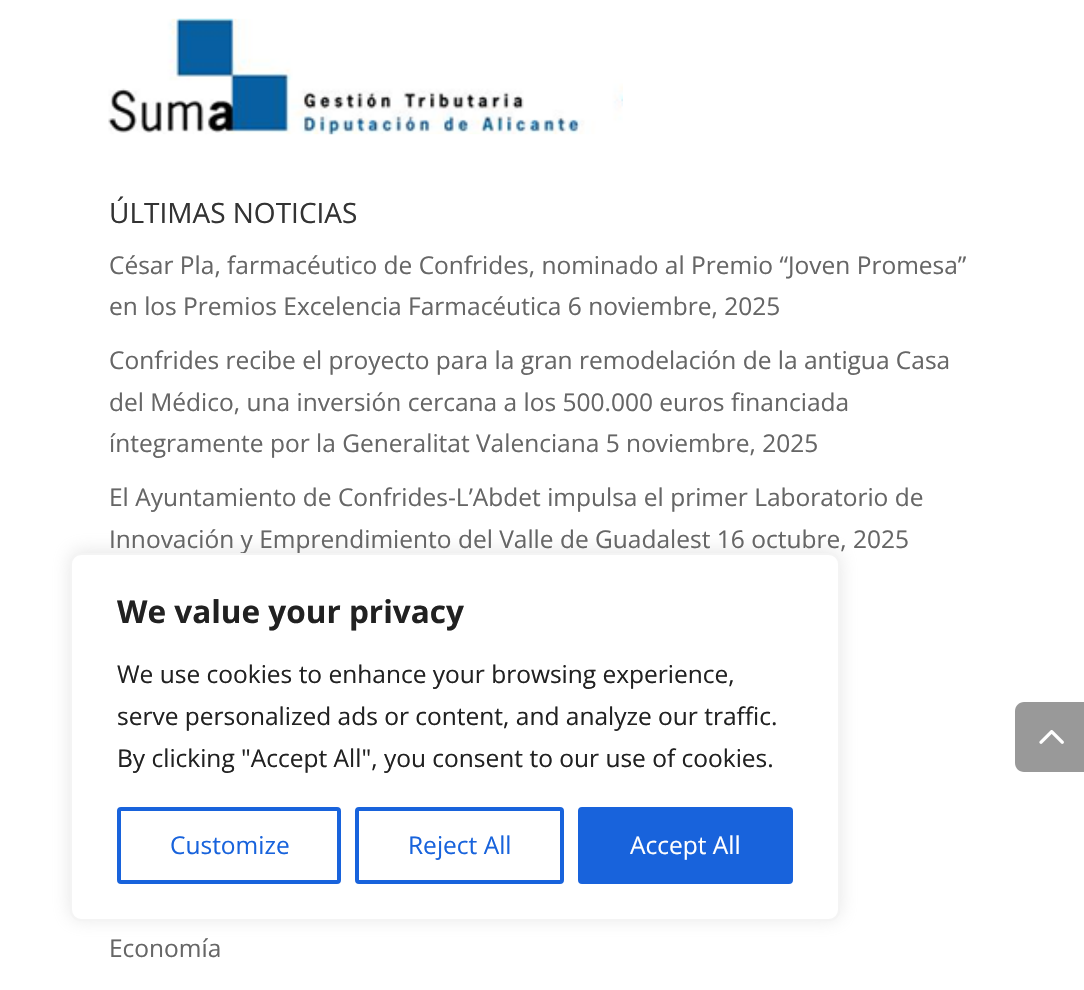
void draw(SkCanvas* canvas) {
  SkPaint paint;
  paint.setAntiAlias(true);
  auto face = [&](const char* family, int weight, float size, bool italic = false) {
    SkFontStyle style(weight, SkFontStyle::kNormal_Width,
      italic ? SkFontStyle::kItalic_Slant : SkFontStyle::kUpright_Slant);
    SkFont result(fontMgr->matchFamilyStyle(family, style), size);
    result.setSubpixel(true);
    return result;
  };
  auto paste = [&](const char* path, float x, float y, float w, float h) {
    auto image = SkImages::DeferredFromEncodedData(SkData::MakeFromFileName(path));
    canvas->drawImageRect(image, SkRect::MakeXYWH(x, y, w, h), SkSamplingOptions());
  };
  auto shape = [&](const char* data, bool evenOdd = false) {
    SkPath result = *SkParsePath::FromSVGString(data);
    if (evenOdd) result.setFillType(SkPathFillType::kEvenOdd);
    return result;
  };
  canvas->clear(0xffffffff);
  paste("img/1.png", 108, 18, 515, 117);
  paint.setColor(0xff999999);
  canvas->drawPath(shape("M1024 702H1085V772H1024C1019 772 1015 768 1015 763V711C1015 706 1019 702 1024 702Z"), paint);
  paste("img/2.png", 1039, 730, 25, 14);
  paint.setColor(0x4dacabab);
  paint.setMaskFilter(SkMaskFilter::MakeBlur(kNormal_SkBlurStyle, 9));
  canvas->drawRoundRect(SkRect::MakeXYWH(70, 551, 770, 368), 11, 11, paint);
  paint.setMaskFilter(nullptr);
  auto f0 = face("Open Sans", 400, 28);
  paint.setColor(0xff333333);
  canvas->drawString("ÚLTIMAS NOTICIAS", 109, 223, f0, paint);
  auto f1 = face("Open Sans", 400, 24.5f);
  paint.setColor(0xff666666);
  {
    const struct { const char* s; float x, y; } items[] = {
      {"César Pla, farmacéutico de Confrides, nominado al Premio “Joven Promesa”", 109, 274},
      {"en los Premios Excelencia Farmacéutica 6 noviembre, 2025", 109, 315},
      {"Confrides recibe el proyecto para la gran remodelación de la antigua Casa", 109, 369},
      {"del Médico, una inversión cercana a los 500.000 euros financiada", 109, 411},
      {"íntegramente por la Generalitat Valenciana 5 noviembre, 2025", 109, 452},
      {"El Ayuntamiento de Confrides-L’Abdet impulsa el primer Laboratorio de", 109, 506},
      {"Innovación y Emprendimiento del Valle de Guadalest 16 octubre, 2025", 109, 548},
      {"Economía", 109, 957},
    };
    for (auto [s, x, y] : items) {
      canvas->drawString(s, x, y, f1, paint);
    }
  }
  paint.setColor(0xffffffff);
  canvas->drawRoundRect(SkRect::MakeXYWH(71, 554, 768, 366), 10, 10, paint);
  paint.setStroke(true);
  paint.setStrokeWidth(2);
  paint.setColor(0xfff4f4f4);
  canvas->drawRoundRect(SkRect::MakeXYWH(71, 554, 768, 366), 10, 10, paint);
  auto f2 = face("Open Sans", 700, 31.5f);
  paint.setStroke(false);
  paint.setColor(0xff212121);
  canvas->drawString("We value your privacy", 117, 623, f2, paint);
  {
    const struct { const char* s; float x, y; } items[] = {
      {"We use cookies to enhance your browsing experience,", 117, 683},
      {"serve personalized ads or content, and analyze our traffic.", 117, 725},
      {"By clicking \"Accept All\", you consent to our use of cookies.", 117, 767},
    };
    for (auto [s, x, y] : items) {
      canvas->drawString(s, x, y, f1, paint);
    }
  }
  paint.setStroke(true);
  paint.setStrokeWidth(4);
  paint.setColor(0xff1863dc);
  canvas->drawRoundRect(SkRect::MakeXYWH(119, 809, 220, 73), 2, 2, paint);
  paint.setStroke(false);
  canvas->drawString("Customize", 170, 854, f1, paint);
  paint.setStroke(true);
  canvas->drawRoundRect(SkRect::MakeXYWH(357, 809, 205, 73), 2, 2, paint);
  paint.setStroke(false);
  canvas->drawString("Reject All", 408, 854, f1, paint);
  canvas->drawRoundRect(SkRect::MakeXYWH(580, 809, 211, 73), 2, 2, paint);
  paint.setStroke(true);
  canvas->drawRoundRect(SkRect::MakeXYWH(580, 809, 211, 73), 2, 2, paint);
  paint.setStroke(false);
  paint.setColor(0xffffffff);
  canvas->drawString("Accept All", 630, 854, f1, paint);
}
